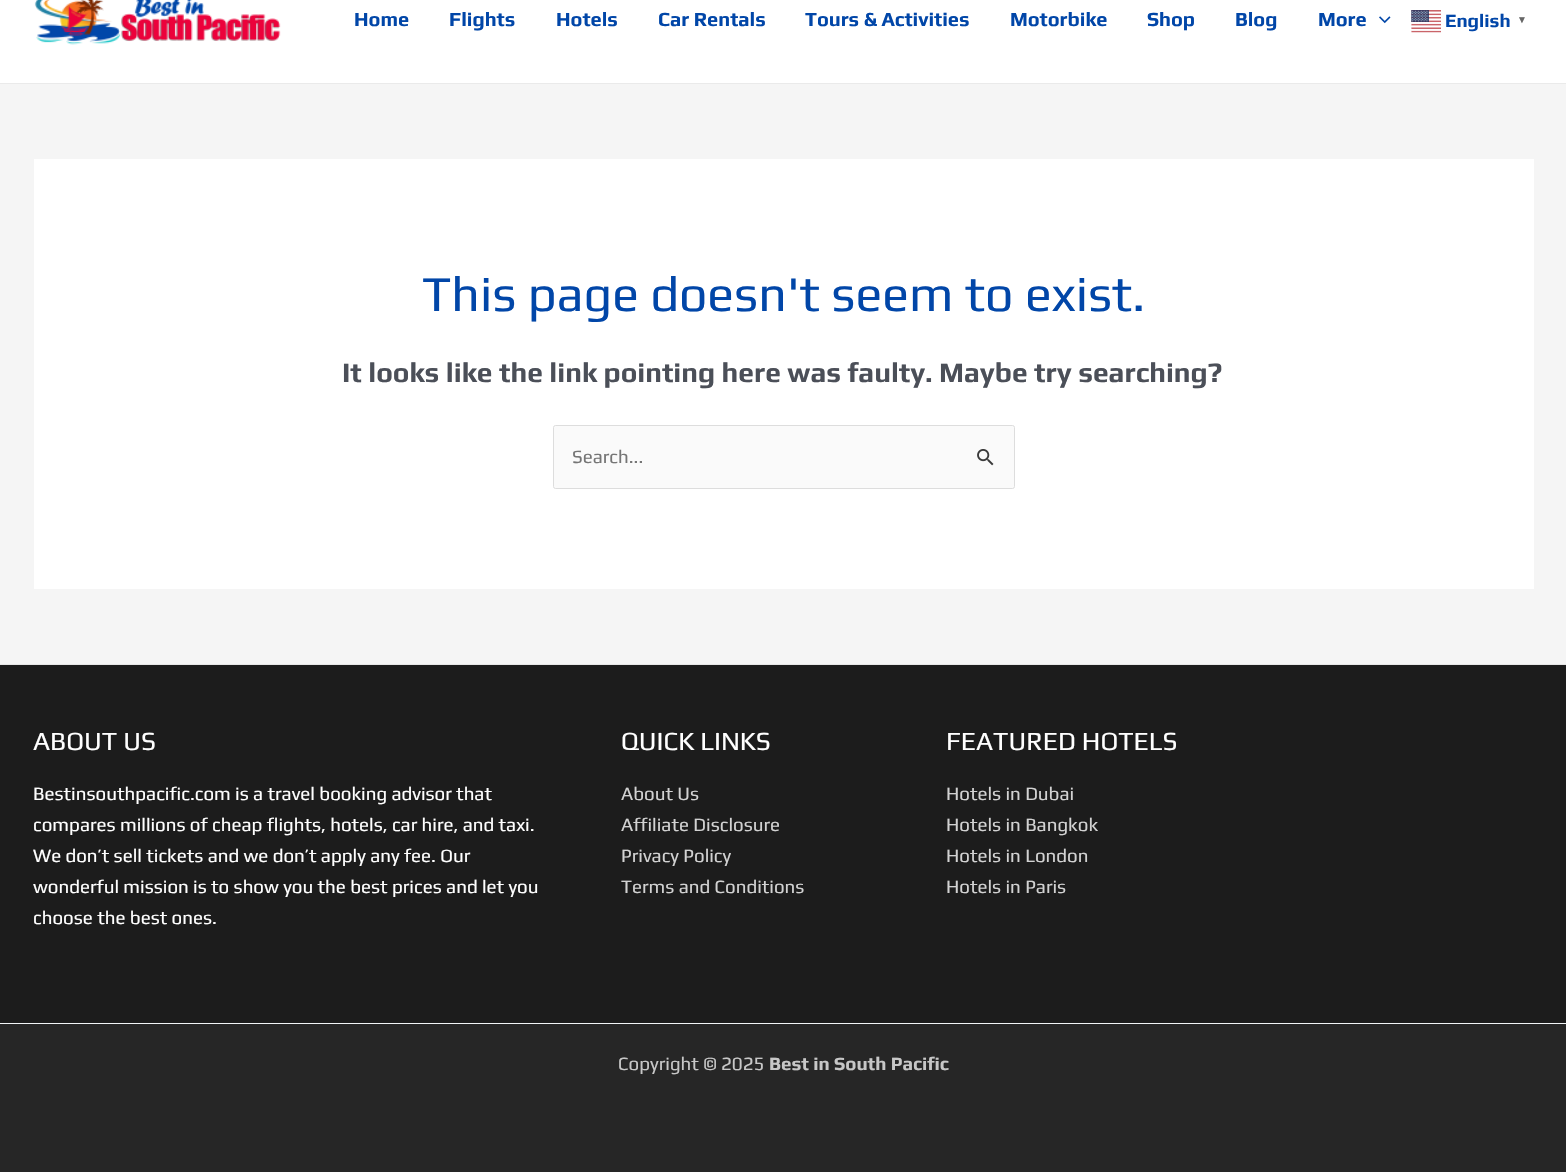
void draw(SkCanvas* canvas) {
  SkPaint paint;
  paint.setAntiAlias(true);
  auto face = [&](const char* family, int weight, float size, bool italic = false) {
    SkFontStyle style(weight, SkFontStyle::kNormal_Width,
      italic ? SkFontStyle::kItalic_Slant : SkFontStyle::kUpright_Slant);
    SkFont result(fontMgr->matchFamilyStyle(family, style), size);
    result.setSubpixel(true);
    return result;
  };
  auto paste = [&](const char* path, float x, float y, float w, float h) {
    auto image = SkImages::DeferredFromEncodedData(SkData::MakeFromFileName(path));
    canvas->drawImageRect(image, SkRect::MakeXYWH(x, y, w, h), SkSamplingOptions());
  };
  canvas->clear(0xfff5f5f5);
  paint.setColor(0xffffffff);
  canvas->drawRect(SkRect::MakeXYWH(0, 0, 1566, 83), paint);
  paint.setColor(0xffeaeaea);
  canvas->drawRect(SkRect::MakeXYWH(0, 83, 1566, 1), paint);
  paste("img/1.png", 34, 0, 247, 45);
  paste("img/2.png", 1379, 16, 12, 8);
  paste("img/3.png", 1411, 10, 30, 23);
  paint.setColor(0xffffffff);
  canvas->drawRect(SkRect::MakeXYWH(34, 159, 1500, 430), paint);
  paint.setColor(0xfffafafa);
  canvas->drawRoundRect(SkRect::MakeXYWH(553.5f, 425.5f, 461, 63), 2, 2, paint);
  paint.setStroke(true);
  paint.setStrokeWidth(1);
  paint.setColor(0xffdddddd);
  canvas->drawRoundRect(SkRect::MakeXYWH(553.5f, 425.5f, 461, 63), 2, 2, paint);
  paste("img/4.png", 977, 449, 17, 17);
  paint.setStroke(false);
  {
    const struct { float x, y, w, h; SkColor color; } items[] = {
      {0, 665, 1566, 358, 0xff1c1c1c},
      {0, 664, 1566, 1, 0xffe6e6e6},
      {0, 1024, 1566, 148, 0xff262626},
      {0, 1023, 1566, 1, 0xfff2f5f7},
    };
    for (auto [x, y, w, h, color] : items) {
      paint.setColor(color);
      canvas->drawRect(SkRect::MakeXYWH(x, y, w, h), paint);
    }
  }
  auto f0 = face("Play", 700, 20);
  paint.setColor(0xff0146a8);
  {
    const struct { const char* s; float x, y; } items[] = {
      {"Home", 354, 26},
      {"Flights", 449, 26},
      {"Hotels", 556, 26},
      {"Car Rentals", 658, 26},
      {"Tours & Activities", 805, 26},
      {"Motorbike", 1010, 26},
      {"Shop", 1147, 26},
      {"Blog", 1235, 26},
      {"More", 1318, 26},
    };
    for (auto [s, x, y] : items) {
      canvas->drawString(s, x, y, f0, paint);
    }
  }
  auto f1 = face("Play", 700, 18.75f);
  canvas->drawString("English", 1445, 27, f1, paint);
  auto f2 = face("Liberation Sans", 700, 10);
  paint.setColor(0xff666666);
  canvas->drawString("▼", 1517, 23, f2, paint);
  auto f3 = face("Play", 400, 50);
  paint.setColor(0xff0146a8);
  canvas->drawString("This page doesn't seem to exist.", 422, 311, f3, paint);
  auto f4 = face("Play", 700, 28.1f);
  paint.setColor(0xff4b4f58);
  canvas->drawString("It looks like the link pointing here was faulty. Maybe try searching?", 342, 382, f4, paint);
  auto f5 = face("Play", 400, 18.75f);
  paint.setColor(0xff757575);
  canvas->drawString("Search...", 572, 463, f5, paint);
  auto f6 = face("Play", 400, 26.25f);
  paint.setColor(0xffffffff);
  canvas->drawString("ABOUT US", 33, 750, f6, paint);
  {
    const struct { const char* s; float x, y; } items[] = {
      {"Bestinsouthpacific.com is a travel booking advisor that", 33, 800},
      {"compares millions of cheap flights, hotels, car hire, and taxi.", 33, 831},
      {"We don’t sell tickets and we don’t apply any fee. Our", 33, 862},
      {"wonderful mission is to show you the best prices and let you", 33, 893},
      {"choose the best ones.", 33, 924},
    };
    for (auto [s, x, y] : items) {
      canvas->drawString(s, x, y, f5, paint);
    }
  }
  canvas->drawString("QUICK LINKS", 621, 750, f6, paint);
  paint.setColor(0xffd2d2d2);
  {
    const struct { const char* s; float x, y; } items[] = {
      {"About Us", 621, 800},
      {"Affiliate Disclosure", 621, 831},
      {"Privacy Policy", 621, 862},
      {"Terms and Conditions", 621, 893},
    };
    for (auto [s, x, y] : items) {
      canvas->drawString(s, x, y, f5, paint);
    }
  }
  paint.setColor(0xffffffff);
  canvas->drawString("FEATURED HOTELS", 946, 750, f6, paint);
  paint.setColor(0xffd2d2d2);
  {
    const struct { const char* s; float x, y; } items[] = {
      {"Hotels in Dubai", 946, 800},
      {"Hotels in Bangkok", 946, 831},
      {"Hotels in London", 946, 862},
      {"Hotels in Paris", 946, 893},
    };
    for (auto [s, x, y] : items) {
      canvas->drawString(s, x, y, f5, paint);
    }
  }
  paint.setColor(0xffc7c7c7);
  canvas->drawString("Copyright © 2025", 618, 1070, f5, paint);
  canvas->drawString("Best in South Pacific", 769, 1070, f1, paint);
}
